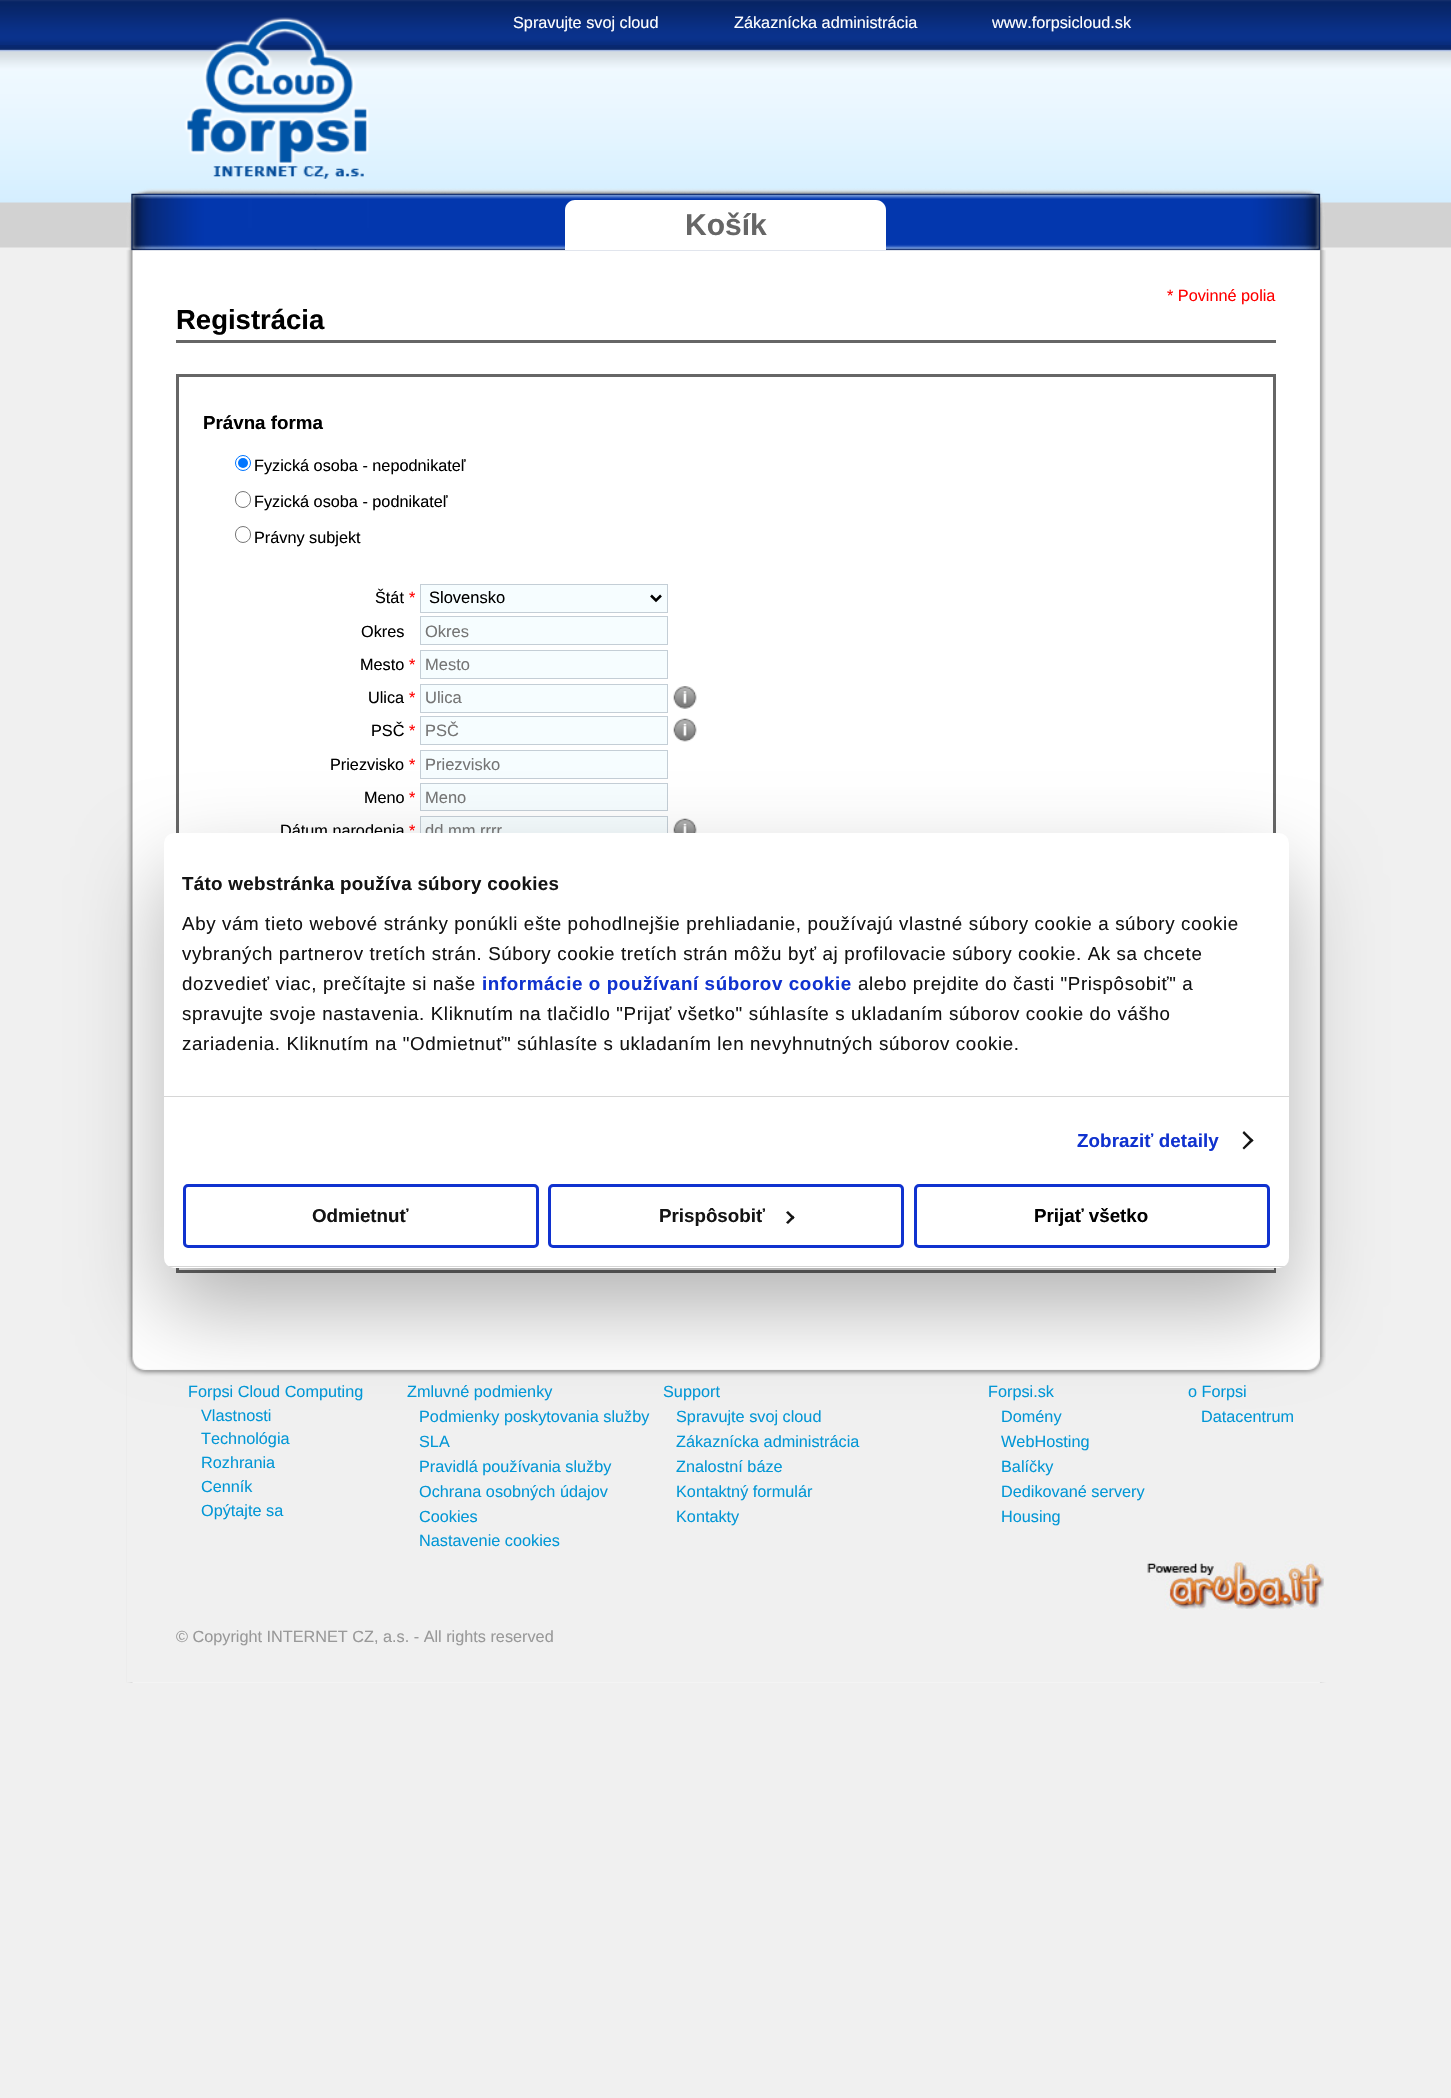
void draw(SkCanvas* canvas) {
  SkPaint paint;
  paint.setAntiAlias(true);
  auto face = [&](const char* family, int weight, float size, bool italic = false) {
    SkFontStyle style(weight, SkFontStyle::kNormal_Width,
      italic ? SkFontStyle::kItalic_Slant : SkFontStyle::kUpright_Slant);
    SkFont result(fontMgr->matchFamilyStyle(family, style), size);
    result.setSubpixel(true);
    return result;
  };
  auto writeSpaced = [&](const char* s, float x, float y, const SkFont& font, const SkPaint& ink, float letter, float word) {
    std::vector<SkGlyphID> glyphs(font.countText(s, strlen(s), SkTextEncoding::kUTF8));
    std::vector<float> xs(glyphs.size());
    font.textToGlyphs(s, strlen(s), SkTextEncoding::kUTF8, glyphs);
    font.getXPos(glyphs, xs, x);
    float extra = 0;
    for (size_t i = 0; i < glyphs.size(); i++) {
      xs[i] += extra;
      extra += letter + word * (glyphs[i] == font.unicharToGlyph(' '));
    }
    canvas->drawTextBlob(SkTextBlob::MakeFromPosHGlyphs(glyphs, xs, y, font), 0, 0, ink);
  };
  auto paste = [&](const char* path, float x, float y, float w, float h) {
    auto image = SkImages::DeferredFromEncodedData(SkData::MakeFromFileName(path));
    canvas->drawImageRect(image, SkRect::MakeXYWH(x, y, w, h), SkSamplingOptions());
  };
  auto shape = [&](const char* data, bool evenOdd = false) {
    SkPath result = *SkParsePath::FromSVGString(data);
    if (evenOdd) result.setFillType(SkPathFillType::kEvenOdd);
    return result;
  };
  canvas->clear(0xfff0f0f0);
  paste("img/1.png", 0, 0, 1451, 248);
  paste("img/2.png", 126, 188, 1200, 1495);
  paste("img/3.png", 127, 1357, 1199, 326);
  paste("img/4.png", 184, 17, 186, 162);
  paint.setColor(0xffffffff);
  canvas->drawPath(shape("M575 200H876C881.5 200 886 204.5 886 210V250H565V210C565 204.5 569.5 200 575 200Z"), paint);
  paint.setColor(0xff666666);
  canvas->drawRect(SkRect::MakeXYWH(176, 340, 1100, 3), paint);
  paint.setStroke(true);
  paint.setStrokeWidth(3);
  canvas->drawRect(SkRect::MakeXYWH(177.5f, 375.5f, 1097, 896), paint);
  paint.setStrokeWidth(1);
  paint.setColor(0xff0075ff);
  canvas->drawCircle(243, 463, 7.5f, paint);
  paint.setStroke(false);
  canvas->drawCircle(243, 463, 5, paint);
  paint.setStroke(true);
  paint.setColor(0xff767676);
  canvas->drawRoundRect(SkRect::MakeXYWH(235.5f, 491.5f, 15, 16), 7.5f, 7.5f, paint);
  canvas->drawRoundRect(SkRect::MakeXYWH(235.5f, 526.5f, 15, 16), 7.5f, 7.5f, paint);
  paint.setStroke(false);
  paint.setColor(0xfff6fdff);
  canvas->drawRect(SkRect::MakeXYWH(420.5f, 584.5f, 247, 28), paint);
  paint.setStroke(true);
  paint.setColor(0xffc4ced6);
  canvas->drawRect(SkRect::MakeXYWH(420.5f, 584.5f, 247, 28), paint);
  paint.setStrokeWidth(2.5f);
  paint.setColor(0xff000000);
  canvas->drawPath(shape("M651 595.5L656 600.5L661 595.5"), paint);
  paint.setStroke(false);
  paint.setColor(0xfff6fdff);
  canvas->drawRect(SkRect::MakeXYWH(420.5f, 616.5f, 247, 28), paint);
  paint.setStroke(true);
  paint.setStrokeWidth(1);
  paint.setColor(0xffc4ced6);
  canvas->drawRect(SkRect::MakeXYWH(420.5f, 616.5f, 247, 28), paint);
  paint.setStroke(false);
  paint.setColor(0xfff6fdff);
  canvas->drawRect(SkRect::MakeXYWH(420.5f, 650.5f, 247, 28), paint);
  paint.setStroke(true);
  paint.setColor(0xffc4ced6);
  canvas->drawRect(SkRect::MakeXYWH(420.5f, 650.5f, 247, 28), paint);
  paint.setStroke(false);
  paint.setColor(0xfff6fdff);
  canvas->drawRect(SkRect::MakeXYWH(420.5f, 684.5f, 247, 28), paint);
  paint.setStroke(true);
  paint.setColor(0xffc4ced6);
  canvas->drawRect(SkRect::MakeXYWH(420.5f, 684.5f, 247, 28), paint);
  paste("img/5.png", 673, 686, 24, 23);
  paint.setStroke(false);
  paint.setColor(0xfff6fdff);
  canvas->drawRect(SkRect::MakeXYWH(420.5f, 716.5f, 247, 28), paint);
  paint.setStroke(true);
  paint.setColor(0xffc4ced6);
  canvas->drawRect(SkRect::MakeXYWH(420.5f, 716.5f, 247, 28), paint);
  paste("img/6.png", 673, 718, 24, 24);
  paint.setStroke(false);
  paint.setColor(0xfff6fdff);
  canvas->drawRect(SkRect::MakeXYWH(420.5f, 750.5f, 247, 28), paint);
  paint.setStroke(true);
  paint.setColor(0xffc4ced6);
  canvas->drawRect(SkRect::MakeXYWH(420.5f, 750.5f, 247, 28), paint);
  paint.setStroke(false);
  paint.setColor(0xfff6fdff);
  canvas->drawRect(SkRect::MakeXYWH(420.5f, 783.5f, 247, 27), paint);
  paint.setStroke(true);
  paint.setColor(0xffc4ced6);
  canvas->drawRect(SkRect::MakeXYWH(420.5f, 783.5f, 247, 27), paint);
  paint.setStroke(false);
  paint.setColor(0xfff6fdff);
  canvas->drawRect(SkRect::MakeXYWH(421, 817, 246, 16), paint);
  paint.setStroke(true);
  paint.setColor(0xffc4ced6);
  canvas->drawRect(SkRect::MakeXYWH(420.5f, 816.5f, 247, 28), paint);
  paste("img/7.png", 673, 818, 24, 15);
  paint.setStroke(false);
  paint.setColor(0xfff0f0f0);
  canvas->drawRect(SkRect::MakeXYWH(179, 1268, 1095, 2), paint);
  paste("img/8.png", 1147, 1560, 178, 50);
  paint.setColor(0x4d000000);
  paint.setMaskFilter(SkMaskFilter::MakeBlur(kNormal_SkBlurStyle, 42.5f));
  canvas->drawRoundRect(SkRect::MakeXYWH(164, 873, 1125, 435), 10, 10, paint);
  paint.setMaskFilter(nullptr);
  auto f0 = face("Liberation Sans", 400, 16.25f);
  paint.setColor(0xffffffff);
  {
    const struct { const char* s; float x, y; } items[] = {
      {"Spravujte svoj cloud", 513, 28},
      {"Zákaznícka administrácia", 734, 28},
      {"www.forpsicloud.sk", 992, 28},
    };
    for (auto [s, x, y] : items) {
      canvas->drawString(s, x, y, f0, paint);
    }
  }
  auto f1 = face("Liberation Sans", 700, 30);
  paint.setColor(0xff666666);
  canvas->drawString("Košík", 685, 235, f1, paint);
  paint.setColor(0xffff0000);
  canvas->drawString("* Povinné polia", 1167, 301, f0, paint);
  auto f2 = face("Liberation Sans", 700, 27.5f);
  paint.setColor(0xff000000);
  canvas->drawString("Registrácia", 176, 329, f2, paint);
  auto f3 = face("Liberation Sans", 700, 18.75f);
  canvas->drawString("Právna forma", 203, 429, f3, paint);
  {
    const struct { const char* s; float x, y; } items[] = {
      {"Fyzická osoba - nepodnikateľ", 254, 471},
      {"Fyzická osoba - podnikateľ", 254, 507},
      {"Právny subjekt", 254, 543},
      {"Štát", 375, 603},
    };
    for (auto [s, x, y] : items) {
      canvas->drawString(s, x, y, f0, paint);
    }
  }
  paint.setColor(0xffff0000);
  canvas->drawString("*", 409, 603, f0, paint);
  auto f4 = face("Liberation Sans", 400, 16.5f);
  paint.setColor(0xff000000);
  canvas->drawString("Slovensko", 429, 603, f4, paint);
  canvas->drawString("Okres", 361, 637, f0, paint);
  paint.setColor(0xff757575);
  canvas->drawString("Okres", 425, 637, f4, paint);
  paint.setColor(0xff000000);
  canvas->drawString("Mesto", 360, 670, f0, paint);
  paint.setColor(0xffff0000);
  canvas->drawString("*", 409, 670, f0, paint);
  paint.setColor(0xff757575);
  canvas->drawString("Mesto", 425, 670, f4, paint);
  paint.setColor(0xff000000);
  canvas->drawString("Ulica", 368, 703, f0, paint);
  paint.setColor(0xffff0000);
  canvas->drawString("*", 409, 703, f0, paint);
  paint.setColor(0xff757575);
  canvas->drawString("Ulica", 425, 703, f4, paint);
  paint.setColor(0xff000000);
  canvas->drawString("PSČ", 371, 736, f0, paint);
  paint.setColor(0xffff0000);
  canvas->drawString("*", 409, 736, f0, paint);
  paint.setColor(0xff757575);
  canvas->drawString("PSČ", 425, 736, f4, paint);
  paint.setColor(0xff000000);
  canvas->drawString("Priezvisko", 330, 770, f0, paint);
  paint.setColor(0xffff0000);
  canvas->drawString("*", 409, 770, f0, paint);
  paint.setColor(0xff757575);
  canvas->drawString("Priezvisko", 425, 770, f4, paint);
  paint.setColor(0xff000000);
  canvas->drawString("Meno", 364, 803, f0, paint);
  paint.setColor(0xffff0000);
  canvas->drawString("*", 409, 803, f0, paint);
  paint.setColor(0xff757575);
  canvas->drawString("Meno", 425, 803, f4, paint);
  paint.setColor(0xff000000);
  canvas->drawString("Dátum narodenia", 280, 836, f0, paint);
  paint.setColor(0xffff0000);
  canvas->drawString("*", 409, 836, f0, paint);
  paint.setColor(0xff757575);
  canvas->drawString("dd.mm.rrrr", 425, 836, f4, paint);
  paint.setColor(0xff0397d6);
  {
    const struct { const char* s; float x, y; } items[] = {
      {"Forpsi Cloud Computing", 188, 1397},
      {"Zmluvné podmienky", 407, 1397},
      {"Support", 663, 1397},
      {"Forpsi.sk", 988, 1397},
      {"o Forpsi", 1188, 1397},
      {"Vlastnosti", 201, 1421},
      {"Podmienky poskytovania služby", 419, 1422},
      {"Spravujte svoj cloud", 676, 1422},
      {"Domény", 1001, 1422},
      {"Datacentrum", 1201, 1422},
      {"Technológia", 201, 1444},
      {"SLA", 419, 1447},
      {"Zákaznícka administrácia", 676, 1447},
      {"WebHosting", 1001, 1447},
      {"Rozhrania", 201, 1468},
      {"Pravidlá používania služby", 419, 1472},
      {"Znalostní báze", 676, 1472},
      {"Balíčky", 1001, 1472},
      {"Cenník", 201, 1492},
      {"Ochrana osobných údajov", 419, 1497},
      {"Kontaktný formulár", 676, 1497},
      {"Dedikované servery", 1001, 1497},
      {"Opýtajte sa", 201, 1516},
      {"Cookies", 419, 1522},
      {"Kontakty", 676, 1522},
      {"Housing", 1001, 1522},
      {"Nastavenie cookies", 419, 1546},
    };
    for (auto [s, x, y] : items) {
      canvas->drawString(s, x, y, f0, paint);
    }
  }
  paint.setColor(0xff999999);
  canvas->drawString("© Copyright INTERNET CZ, a.s. - All rights reserved", 176, 1642, f0, paint);
  paint.setColor(0xffffffff);
  canvas->drawRoundRect(SkRect::MakeXYWH(164, 833, 1125, 435), 10, 10, paint);
  paint.setColor(0xffd6d6d6);
  canvas->drawRect(SkRect::MakeXYWH(164, 1096, 1125, 1), paint);
  paint.setColor(0xff141414);
  writeSpaced("Táto webstránka používa súbory cookies", 182, 890, f3, paint, 0.3f, 0);
  auto f5 = face("Liberation Sans", 400, 18.75f);
  {
    const struct { const char* s; float x, y; } items[] = {
      {"Aby vám tieto webové stránky ponúkli ešte pohodlnejšie prehliadanie, používajú vlastné súbory cookie a súbory cookie", 182, 930},
      {"vybraných partnerov tretích strán. Súbory cookie tretích strán môžu byť aj profilovacie súbory cookie. Ak sa chcete", 182, 960},
      {"dozvedieť viac, prečítajte si naše", 182, 990},
    };
    for (auto [s, x, y] : items) {
      writeSpaced(s, x, y, f5, paint, 0.62f, 0);
    }
  }
  paint.setColor(0xff1032cf);
  writeSpaced("informácie o používaní súborov cookie", 482, 990, f3, paint, 0.62f, 0);
  paint.setColor(0xff141414);
  {
    const struct { const char* s; float x, y; } items[] = {
      {"alebo prejdite do časti \"Prispôsobiť\" a", 858, 990},
      {"spravujte svoje nastavenia. Kliknutím na tlačidlo \"Prijať všetko\" súhlasíte s ukladaním súborov cookie do vášho", 182, 1020},
      {"zariadenia. Kliknutím na \"Odmietnuť\" súhlasíte s ukladaním len nevyhnutných súborov cookie.", 182, 1050},
    };
    for (auto [s, x, y] : items) {
      writeSpaced(s, x, y, f5, paint, 0.62f, 0);
    }
  }
  paint.setColor(0xff1032cf);
  writeSpaced("Zobraziť detaily", 1077, 1147, f3, paint, 0.1f, 0);
  paint.setColor(0xff141414);
  canvas->drawPath(shape("M1244 1131L1253.5 1140.5L1251.5 1142L1242.5 1133Z"), paint);
  canvas->drawPath(shape("M1251.5 1138.5L1253.5 1140.5L1244 1149.5L1242.5 1148Z"), paint);
  canvas->save();
  canvas->clipPath(shape("M174 833H1279C1284.5 833 1289 837.5 1289 843V1258C1289 1263.5 1284.5 1268 1279 1268H174C168.5 1268 164 1263.5 164 1258V843C164 837.5 168.5 833 174 833Z"), true);
  paint.setColor(0xffd6d6d6);
  canvas->drawRect(SkRect::MakeXYWH(164, 1266, 1125, 1), paint);
  canvas->restore();
  paint.setStroke(true);
  paint.setStrokeWidth(3);
  paint.setColor(0xff1032cf);
  canvas->drawRoundRect(SkRect::MakeXYWH(184.5f, 1185.5f, 353, 61), 3.5f, 3.5f, paint);
  paint.setStroke(false);
  paint.setColor(0xff141414);
  canvas->drawString("Odmietnuť", 312, 1222, f3, paint);
  paint.setStroke(true);
  paint.setColor(0xff1032cf);
  canvas->drawRoundRect(SkRect::MakeXYWH(549.5f, 1185.5f, 353, 61), 3.5f, 3.5f, paint);
  paint.setStroke(false);
  paint.setColor(0xff141414);
  canvas->drawString("Prispôsobiť", 659, 1222, f3, paint);
  canvas->drawPath(shape("M788 1211L794.5 1217.5L793 1219.5L786 1212.5Z"), paint);
  canvas->drawPath(shape("M793 1215.5L794.5 1217.5L788 1224L786 1222.5Z"), paint);
  paint.setStroke(true);
  paint.setColor(0xff1032cf);
  canvas->drawRoundRect(SkRect::MakeXYWH(915.5f, 1185.5f, 353, 61), 3.5f, 3.5f, paint);
  paint.setStroke(false);
  paint.setColor(0xff000000);
  canvas->drawString("Prijať všetko", 1034, 1222, f3, paint);
}
